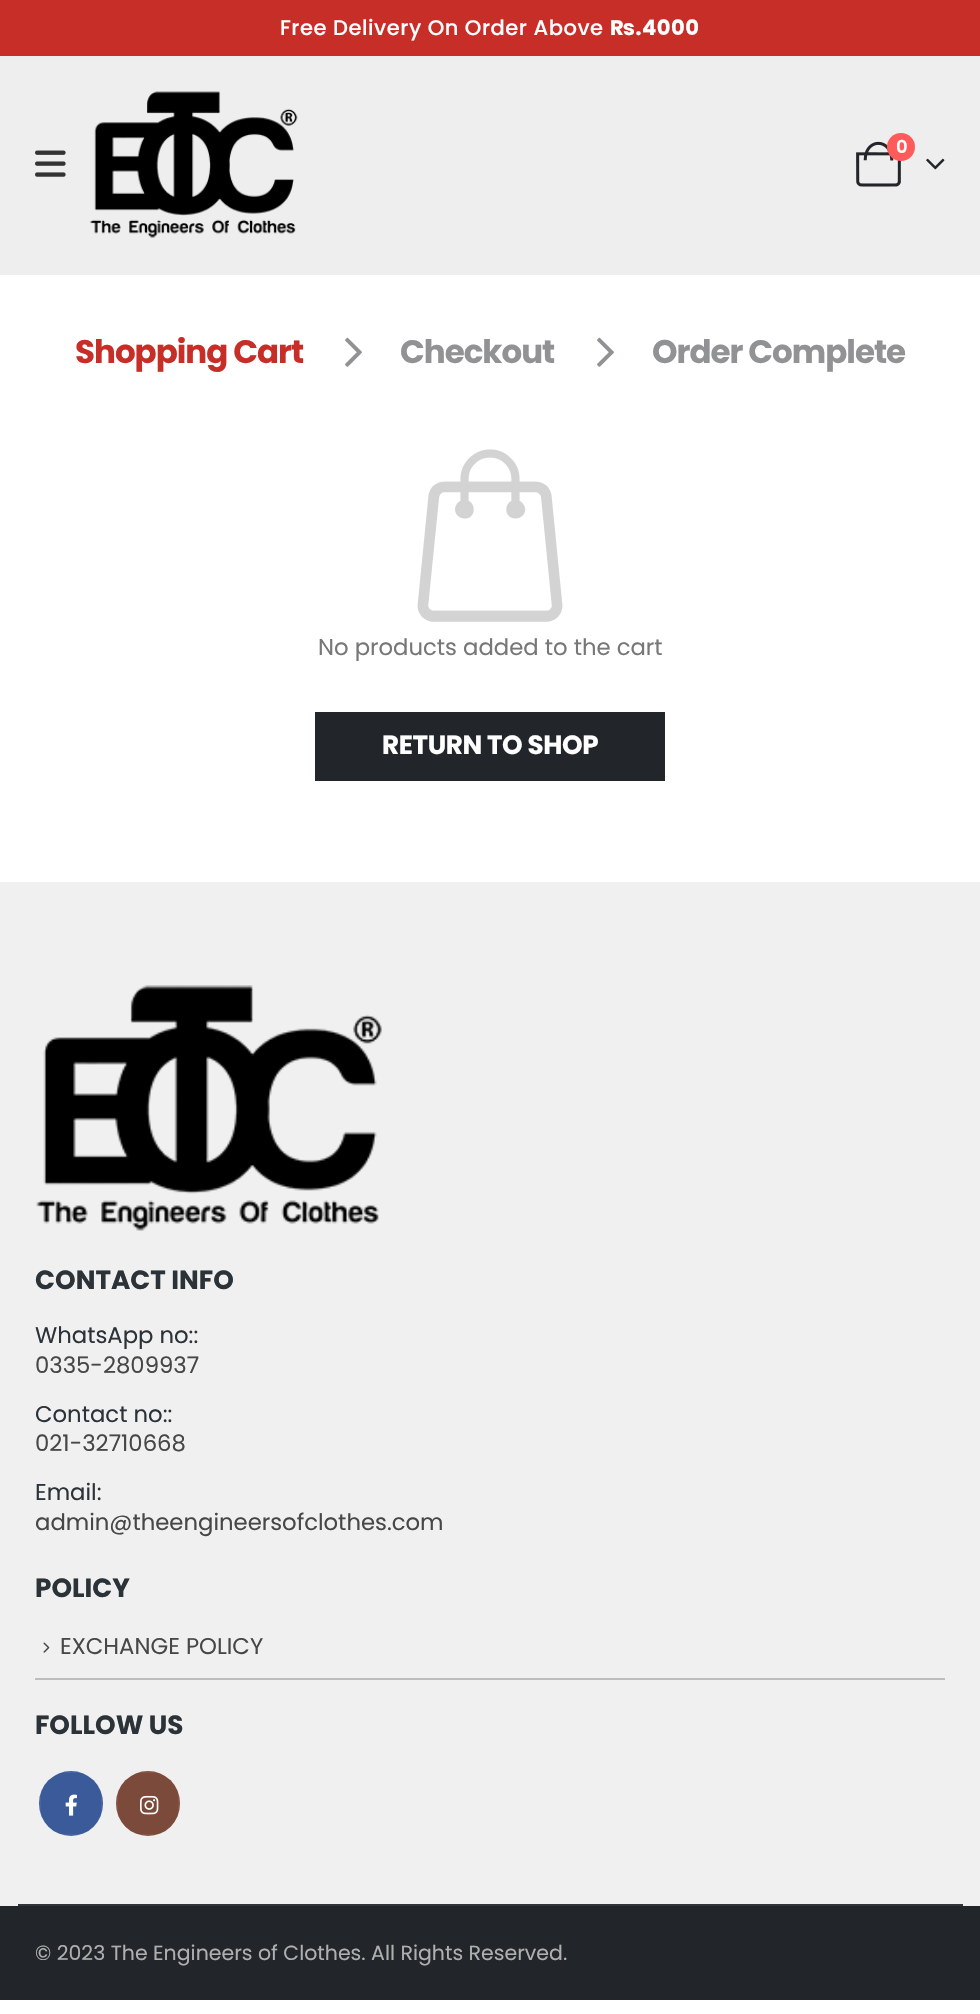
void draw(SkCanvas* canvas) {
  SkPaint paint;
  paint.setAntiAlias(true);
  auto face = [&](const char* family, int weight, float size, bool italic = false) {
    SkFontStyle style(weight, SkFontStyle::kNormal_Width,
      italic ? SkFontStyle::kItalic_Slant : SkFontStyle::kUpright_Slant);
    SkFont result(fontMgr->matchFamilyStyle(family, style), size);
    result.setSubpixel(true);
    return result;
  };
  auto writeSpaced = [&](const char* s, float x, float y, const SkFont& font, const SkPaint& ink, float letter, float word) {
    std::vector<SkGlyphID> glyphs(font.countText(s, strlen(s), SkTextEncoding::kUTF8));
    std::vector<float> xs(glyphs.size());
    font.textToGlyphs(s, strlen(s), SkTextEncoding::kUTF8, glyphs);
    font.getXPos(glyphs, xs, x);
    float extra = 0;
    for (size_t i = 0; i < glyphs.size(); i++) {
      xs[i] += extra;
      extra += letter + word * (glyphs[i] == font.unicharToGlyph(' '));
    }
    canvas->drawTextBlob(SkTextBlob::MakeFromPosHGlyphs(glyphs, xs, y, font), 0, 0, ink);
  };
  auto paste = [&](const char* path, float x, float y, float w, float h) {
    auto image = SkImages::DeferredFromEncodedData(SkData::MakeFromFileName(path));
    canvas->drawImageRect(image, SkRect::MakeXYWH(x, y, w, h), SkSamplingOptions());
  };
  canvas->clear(0xffffffff);
  paint.setColor(0xffc62e27);
  canvas->drawRect(SkRect::MakeXYWH(0, 0, 980, 56), paint);
  paint.setColor(0xffeeeeef);
  canvas->drawRect(SkRect::MakeXYWH(0, 56, 980, 219), paint);
  paste("img/1.png", 90, 91, 208, 147);
  paste("img/2.png", 856, 141, 45, 46);
  paint.setColor(0xffff5b5b);
  canvas->drawCircle(901, 147, 14, paint);
  paste("img/3.png", 926, 158, 19, 12);
  paste("img/4.png", 35, 150, 31, 27);
  paste("img/5.png", 345, 337, 17, 30);
  paste("img/5.png", 597, 337, 17, 30);
  paste("img/6.png", 417, 449, 146, 173);
  paint.setColor(0xff222529);
  canvas->drawRect(SkRect::MakeXYWH(315, 712, 350, 69), paint);
  paint.setColor(0xfff0f0f1);
  canvas->drawRect(SkRect::MakeXYWH(0, 882, 980, 1024), paint);
  paste("img/7.png", 36, 985, 346, 246);
  paint.setColor(0xffbdbdbe);
  canvas->drawRect(SkRect::MakeXYWH(35, 1678, 910, 2), paint);
  paste("img/8.png", 43, 1642, 7, 11);
  paint.setColor(0xff3b5a9a);
  canvas->drawRoundRect(SkRect::MakeXYWH(39, 1771, 64, 65), 32, 32, paint);
  paint.setStroke(true);
  paint.setStrokeWidth(2);
  paint.setColor(0x0fffffff);
  canvas->drawRect(SkRect::MakeXYWH(40, 1772, 62, 63), paint);
  paste("img/9.png", 65, 1794, 12, 22);
  paint.setStroke(false);
  paint.setColor(0xff7c4a3a);
  canvas->drawRoundRect(SkRect::MakeXYWH(116, 1771, 64, 65), 32, 32, paint);
  paint.setStroke(true);
  paint.setColor(0x0fffffff);
  canvas->drawRect(SkRect::MakeXYWH(117, 1772, 62, 63), paint);
  paste("img/10.png", 140, 1795, 19, 20);
  paint.setStroke(false);
  paint.setColor(0xff313438);
  canvas->drawRect(SkRect::MakeXYWH(18, 1904, 945, 2), paint);
  paint.setColor(0xff222529);
  canvas->drawRect(SkRect::MakeXYWH(0, 1906, 980, 94), paint);
  auto f0 = face("Poppins", 500, 21.1f);
  paint.setColor(0xffffffff);
  writeSpaced("Free Delivery On Order Above", 280, 35, f0, paint, 0.5f, 0);
  auto f1 = face("Poppins", 700, 21.1f);
  writeSpaced("₨.4000", 610, 35, f1, paint, 0.5f, 0);
  auto f2 = face("Poppins", 600, 18);
  canvas->drawString("0", 896, 153, f2, paint);
  auto f3 = face("Poppins", 700, 32.5f);
  paint.setColor(0xffc62e27);
  writeSpaced("Shopping Cart", 75, 363, f3, paint, -1, 0);
  paint.setColor(0xff919294);
  writeSpaced("Checkout", 400, 363, f3, paint, -1, 0);
  writeSpaced("Order Complete", 652, 363, f3, paint, -1, 0);
  auto f4 = face("Poppins", 400, 22.75f);
  paint.setColor(0xff777777);
  canvas->drawString("No products added to the cart", 318, 655, f4, paint);
  auto f5 = face("Poppins", 700, 26.25f);
  paint.setColor(0xffffffff);
  writeSpaced("RETURN TO SHOP", 382, 754, f5, paint, -0.4f, 0);
  paint.setColor(0xff2c3338);
  canvas->drawString("CONTACT INFO", 35, 1289, f5, paint);
  canvas->drawString("WhatsApp no::", 35, 1343, f4, paint);
  paint.setColor(0xff474747);
  canvas->drawString("0335-2809937", 35, 1373, f4, paint);
  paint.setColor(0xff2c3338);
  canvas->drawString("Contact no::", 35, 1422, f4, paint);
  paint.setColor(0xff474747);
  canvas->drawString("021-32710668", 35, 1451, f4, paint);
  paint.setColor(0xff2c3338);
  canvas->drawString("Email:", 35, 1500, f4, paint);
  paint.setColor(0xff474747);
  canvas->drawString("admin@theengineersofclothes.com", 35, 1530, f4, paint);
  paint.setColor(0xff2c3338);
  canvas->drawString("POLICY", 35, 1597, f5, paint);
  paint.setColor(0xff474747);
  canvas->drawString("EXCHANGE POLICY", 60, 1654, f4, paint);
  paint.setColor(0xff2c3338);
  canvas->drawString("FOLLOW US", 35, 1734, f5, paint);
  auto f6 = face("Poppins", 400, 20.5f);
  paint.setColor(0xffafafaf);
  canvas->drawString("© 2023 The Engineers of Clothes. All Rights Reserved.", 35, 1960, f6, paint);
}
